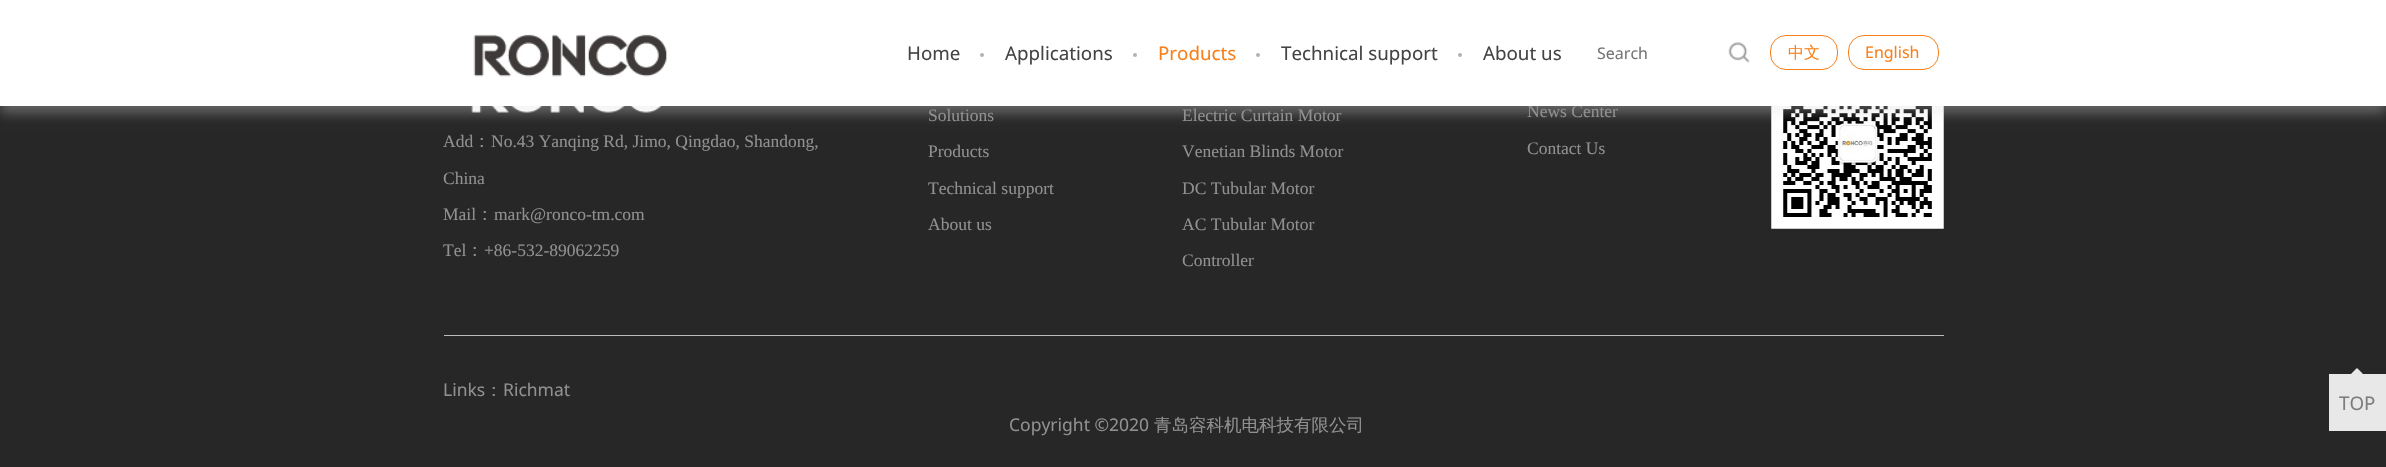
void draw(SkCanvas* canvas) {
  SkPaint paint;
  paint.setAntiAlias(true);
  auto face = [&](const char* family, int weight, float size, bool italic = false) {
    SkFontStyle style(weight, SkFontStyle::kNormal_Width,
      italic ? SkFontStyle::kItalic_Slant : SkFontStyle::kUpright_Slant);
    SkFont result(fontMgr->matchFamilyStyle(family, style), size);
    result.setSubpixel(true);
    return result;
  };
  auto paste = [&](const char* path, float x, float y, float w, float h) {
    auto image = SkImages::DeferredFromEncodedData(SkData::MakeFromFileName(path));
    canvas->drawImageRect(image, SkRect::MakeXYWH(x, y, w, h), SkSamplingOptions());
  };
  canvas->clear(0xff272727);
  paste("img/3.png", 471, 106, 191, 7);
  paste("img/4.png", 1771, 106, 173, 123);
  paint.setColor(0x59dddddd);
  paint.setMaskFilter(SkMaskFilter::MakeBlur(kNormal_SkBlurStyle, 6));
  canvas->drawRect(SkRect::MakeXYWH(0, 6, 2386, 107), paint);
  paint.setMaskFilter(nullptr);
  paint.setColor(0xffbbbbbb);
  canvas->drawRect(SkRect::MakeXYWH(444, 335, 1500, 1), paint);
  paint.setColor(0xffe8e8e8);
  canvas->drawRect(SkRect::MakeXYWH(2329, 374, 57, 57), paint);
  paste("img/5.png", 2351, 368, 12, 6);
  auto f0 = face("Liberation Serif", 400, 17.5f);
  paint.setColor(0xff919090);
  canvas->drawString("Add", 443, 147, f0, paint);
  auto f1 = face("WenQuanYi Zen Hei", 500, 17.5f);
  canvas->drawString("：", 473, 147, f1, paint);
  {
    const struct { const char* s; float x, y; } items[] = {
      {"No.43 Yanqing Rd, Jimo, Qingdao, Shandong,", 491, 147},
      {"China", 443, 184},
      {"Mail", 443, 220},
    };
    for (auto [s, x, y] : items) {
      canvas->drawString(s, x, y, f0, paint);
    }
  }
  canvas->drawString("：", 476, 220, f1, paint);
  canvas->drawString("mark@ronco-tm.com", 494, 220, f0, paint);
  canvas->drawString("Tel", 443, 256, f0, paint);
  canvas->drawString("：", 466, 256, f1, paint);
  {
    const struct { const char* s; float x, y; } items[] = {
      {"+86-532-89062259", 484, 256},
      {"Solutions", 928, 121},
      {"Products", 928, 157},
      {"Technical support", 928, 194},
      {"About us", 928, 230},
      {"Electric Curtain Motor", 1182, 121},
      {"Venetian Blinds Motor", 1182, 157},
      {"DC Tubular Motor", 1182, 194},
      {"AC Tubular Motor", 1182, 230},
      {"Controller", 1182, 266},
      {"News Center", 1527, 117},
    };
    for (auto [s, x, y] : items) {
      canvas->drawString(s, x, y, f0, paint);
    }
  }
  paint.setColor(0xffffffff);
  canvas->drawRect(SkRect::MakeXYWH(0, 0, 2386, 106), paint);
  paste("img/2.png", 1728, 42, 22, 21);
  auto f2 = face("Noto Sans", 400, 16);
  paint.setColor(0xff757575);
  canvas->drawString("Search", 1597, 59, f2, paint);
  paint.setStroke(true);
  paint.setStrokeWidth(1);
  paint.setColor(0xfff97f19);
  canvas->drawRoundRect(SkRect::MakeXYWH(1848.5f, 35.5f, 90, 34), 15.5f, 15.5f, paint);
  paint.setStroke(false);
  canvas->drawString("English", 1865, 58, f2, paint);
  paint.setStroke(true);
  canvas->drawRoundRect(SkRect::MakeXYWH(1770.5f, 35.5f, 67, 34), 15.5f, 15.5f, paint);
  auto f3 = face("WenQuanYi Zen Hei", 500, 16);
  paint.setStroke(false);
  canvas->drawString("中文", 1788, 58, f3, paint);
  auto f4 = face("Noto Sans", 400, 18.75f);
  paint.setColor(0xff444444);
  canvas->drawString("About us", 1483, 60, f4, paint);
  paint.setColor(0xffb2b2b2);
  canvas->drawCircle(1460, 55, 2, paint);
  paint.setColor(0xff444444);
  canvas->drawString("Technical support", 1281, 60, f4, paint);
  paint.setColor(0xfff97f19);
  canvas->drawString("Products", 1158, 60, f4, paint);
  paint.setColor(0xffb2b2b2);
  canvas->drawCircle(1258, 55, 2, paint);
  paint.setColor(0xff444444);
  canvas->drawString("Applications", 1005, 60, f4, paint);
  paint.setColor(0xffb2b2b2);
  canvas->drawCircle(1135, 55, 2, paint);
  canvas->drawCircle(982, 55, 2, paint);
  paint.setColor(0xff444444);
  canvas->drawString("Home", 907, 60, f4, paint);
  paste("img/1.png", 473, 34, 194, 43);
  paint.setColor(0xff919090);
  canvas->drawString("Contact Us", 1527, 154, f0, paint);
  auto f5 = face("Noto Sans", 400, 17.5f);
  canvas->drawString("Links", 443, 396, f5, paint);
  canvas->drawString("：", 485, 396, f1, paint);
  canvas->drawString("Richmat", 503, 396, f5, paint);
  canvas->drawString("Copyright ©2020", 1009, 431, f5, paint);
  canvas->drawString("青岛容科机电科技有限公司", 1154, 431, f1, paint);
  paint.setColor(0xff7d7d7d);
  canvas->drawString("TOP", 2339, 410, f4, paint);
}
